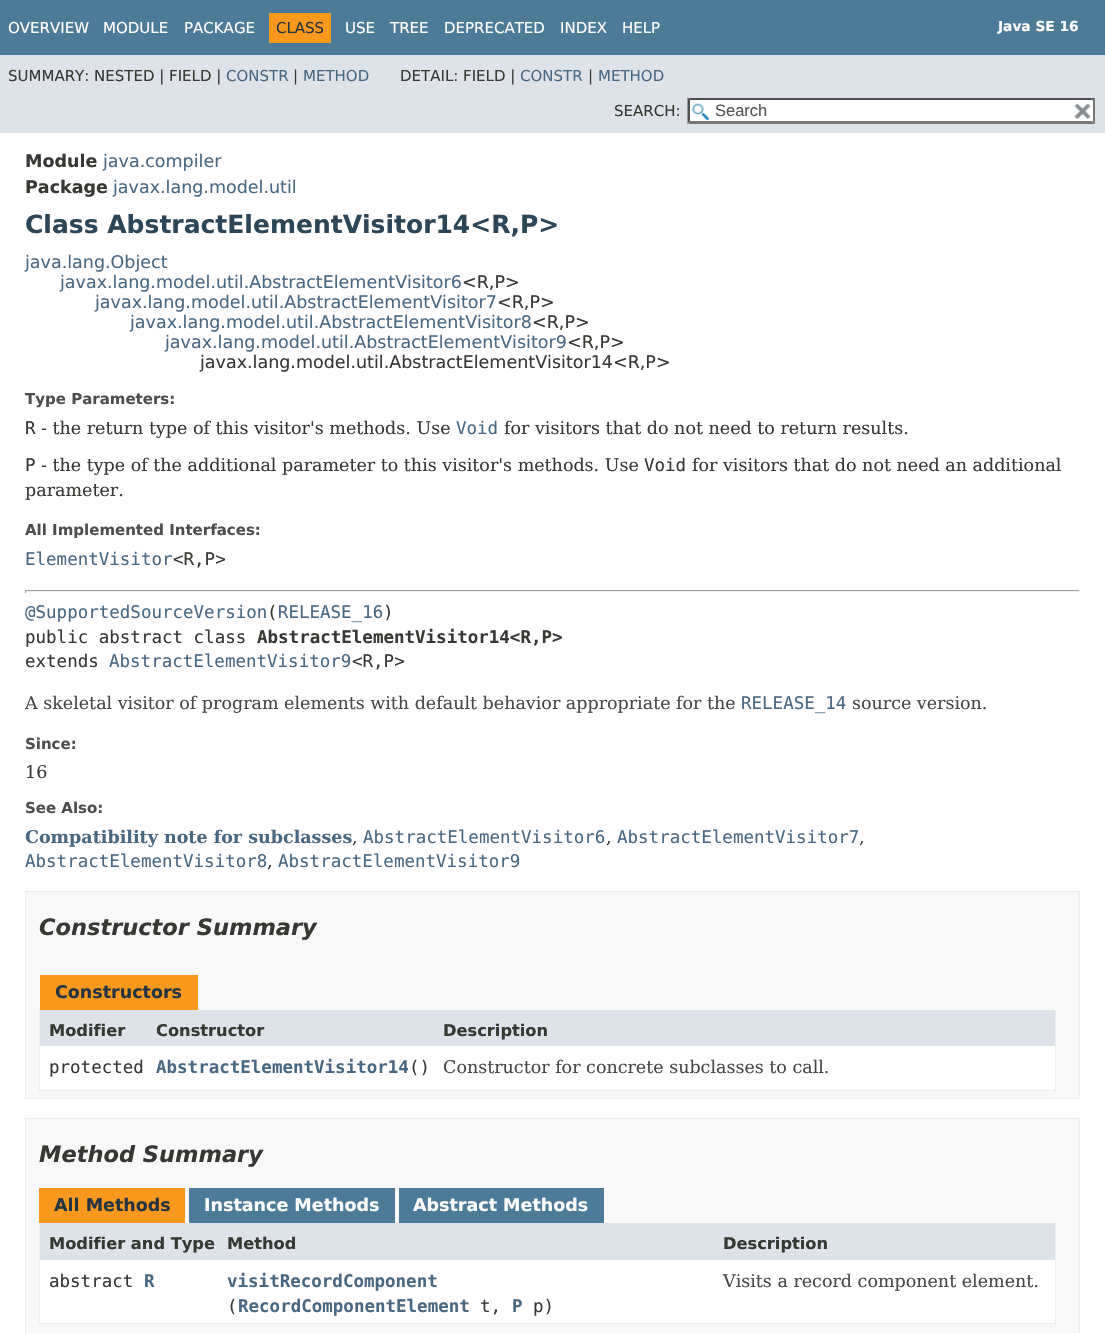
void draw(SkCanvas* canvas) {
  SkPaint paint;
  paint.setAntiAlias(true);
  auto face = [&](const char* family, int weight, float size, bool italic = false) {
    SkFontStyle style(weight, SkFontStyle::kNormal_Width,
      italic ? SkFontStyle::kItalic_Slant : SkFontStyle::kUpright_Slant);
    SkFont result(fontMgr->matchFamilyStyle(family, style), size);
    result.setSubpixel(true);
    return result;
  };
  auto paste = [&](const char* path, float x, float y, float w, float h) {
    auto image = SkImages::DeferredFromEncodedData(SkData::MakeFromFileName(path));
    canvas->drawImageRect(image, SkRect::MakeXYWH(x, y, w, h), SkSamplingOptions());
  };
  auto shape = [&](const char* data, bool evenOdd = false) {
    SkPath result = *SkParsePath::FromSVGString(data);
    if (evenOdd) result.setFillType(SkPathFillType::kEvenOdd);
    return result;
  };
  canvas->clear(0xffffffff);
  {
    const struct { float x, y, w, h; SkColor color; } items[] = {
      {0, 0, 1105, 55, 0xff4d7a97},
      {269, 13, 62, 30, 0xfff8981d},
      {0, 55, 1105, 78, 0xffdee3e9},
      {688, 98, 407, 26, 0xffffffff},
    };
    for (auto [x, y, w, h, color] : items) {
      paint.setColor(color);
      canvas->drawRect(SkRect::MakeXYWH(x, y, w, h), paint);
    }
  }
  paste("img/1.png", 692, 103, 17, 17);
  paint.setColor(0xff4f4f4f);
  canvas->drawPath(shape("M688 98H1095L1092 100H690Z"), paint);
  paint.setColor(0xff767676);
  canvas->drawPath(shape("M1095 97.5V124L1092.5 121V100Z"), paint);
  canvas->drawPath(shape("M1095 124H688L690 121H1092Z"), paint);
  paint.setColor(0xff4f4f4f);
  canvas->drawPath(shape("M687.5 124V97.5L690 100V121Z"), paint);
  paint.setColor(0xffffffff);
  canvas->drawRect(SkRect::MakeXYWH(1092, 101, 1, 20), paint);
  paste("img/2.png", 1074, 103, 17, 16);
  {
    const struct { float x, y, w, h; SkColor color; } items[] = {
      {25, 590, 1055, 1, 0xff9f9f9f},
      {1079, 590, 1, 3, 0xffeeeeee},
      {25, 591, 1055, 1, 0xffeeeeee},
      {25, 590, 1, 3, 0xff9f9f9f},
    };
    for (auto [x, y, w, h, color] : items) {
      paint.setColor(color);
      canvas->drawRect(SkRect::MakeXYWH(x, y, w, h), paint);
    }
  }
  paint.setColor(0xfff8f8f8);
  canvas->drawRect(SkRect::MakeXYWH(25.5f, 891.5f, 1054, 207), paint);
  paint.setStroke(true);
  paint.setStrokeWidth(1);
  paint.setColor(0xffededed);
  canvas->drawRect(SkRect::MakeXYWH(25.5f, 891.5f, 1054, 207), paint);
  paint.setStroke(false);
  {
    const struct { float x, y, w, h; SkColor color; } items[] = {
      {40, 975, 158, 35, 0xfff8981d},
      {1055, 1010, 1, 81, 0xffeeeeee},
      {39, 1090, 1017, 1, 0xffeeeeee},
      {39, 1010, 1, 81, 0xffeeeeee},
      {40, 1010, 394, 36, 0xffdee3e9},
      {434, 1010, 621, 36, 0xffdee3e9},
      {40, 1046, 394, 44, 0xffffffff},
      {434, 1046, 621, 44, 0xffffffff},
    };
    for (auto [x, y, w, h, color] : items) {
      paint.setColor(color);
      canvas->drawRect(SkRect::MakeXYWH(x, y, w, h), paint);
    }
  }
  paint.setColor(0xfff8f8f8);
  canvas->drawRect(SkRect::MakeXYWH(25.5f, 1118.5f, 1054, 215), paint);
  paint.setStroke(true);
  paint.setColor(0xffededed);
  canvas->drawRect(SkRect::MakeXYWH(25.5f, 1118.5f, 1054, 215), paint);
  paint.setStroke(false);
  {
    const struct { float x, y, w, h; SkColor color; } items[] = {
      {39, 1188, 146, 35, 0xfff8981d},
      {189, 1188, 206, 35, 0xff4d7a97},
      {399, 1188, 205, 35, 0xff4d7a97},
      {1055, 1223, 1, 101, 0xffeeeeee},
      {39, 1323, 1017, 1, 0xffeeeeee},
      {39, 1223, 1, 101, 0xffeeeeee},
      {40, 1223, 674, 37, 0xffdee3e9},
      {714, 1223, 341, 37, 0xffdee3e9},
      {40, 1260, 674, 63, 0xffffffff},
      {714, 1260, 341, 63, 0xffffffff},
    };
    for (auto [x, y, w, h, color] : items) {
      paint.setColor(color);
      canvas->drawRect(SkRect::MakeXYWH(x, y, w, h), paint);
    }
  }
  auto f0 = face("DejaVu Sans", 400, 15);
  {
    const struct { const char* s; float x, y; } items[] = {
      {"OVERVIEW", 8, 33},
      {"MODULE", 103, 33},
      {"PACKAGE", 184, 33},
    };
    for (auto [s, x, y] : items) {
      canvas->drawString(s, x, y, f0, paint);
    }
  }
  paint.setColor(0xff253441);
  canvas->drawString("CLASS", 276, 33, f0, paint);
  paint.setColor(0xffffffff);
  {
    const struct { const char* s; float x, y; } items[] = {
      {"USE", 345, 33},
      {"TREE", 390, 33},
      {"DEPRECATED", 444, 33},
      {"INDEX", 560, 33},
      {"HELP", 622, 33},
    };
    for (auto [s, x, y] : items) {
      canvas->drawString(s, x, y, f0, paint);
    }
  }
  auto f1 = face("DejaVu Sans", 700, 13.75f);
  canvas->drawString("Java SE 16", 998, 31, f1, paint);
  paint.setColor(0xff353833);
  canvas->drawString("SUMMARY: NESTED | FIELD |", 8, 81, f0, paint);
  paint.setColor(0xff4a6782);
  canvas->drawString("CONSTR", 226, 81, f0, paint);
  paint.setColor(0xff353833);
  canvas->drawString("|", 293, 81, f0, paint);
  paint.setColor(0xff4a6782);
  canvas->drawString("METHOD", 303, 81, f0, paint);
  paint.setColor(0xff353833);
  canvas->drawString("DETAIL: FIELD |", 400, 81, f0, paint);
  paint.setColor(0xff4a6782);
  canvas->drawString("CONSTR", 520, 81, f0, paint);
  paint.setColor(0xff353833);
  canvas->drawString("|", 588, 81, f0, paint);
  paint.setColor(0xff4a6782);
  canvas->drawString("METHOD", 598, 81, f0, paint);
  paint.setColor(0xff353833);
  canvas->drawString("SEARCH:", 614, 116, f0, paint);
  auto f2 = face("Liberation Sans", 400, 16.5f);
  paint.setColor(0xff545454);
  canvas->drawString("Search", 715, 116, f2, paint);
  auto f3 = face("DejaVu Sans", 700, 17.5f);
  paint.setColor(0xff353833);
  canvas->drawString("Module", 25, 167, f3, paint);
  auto f4 = face("DejaVu Sans", 400, 17.5f);
  paint.setColor(0xff4a6782);
  canvas->drawString("java.compiler", 103, 167, f4, paint);
  paint.setColor(0xff353833);
  canvas->drawString("Package", 25, 193, f3, paint);
  paint.setColor(0xff4a6782);
  canvas->drawString("javax.lang.model.util", 113, 193, f4, paint);
  auto f5 = face("DejaVu Sans", 700, 25);
  paint.setColor(0xff2c4557);
  canvas->drawString("Class AbstractElementVisitor14<R,P>", 25, 233, f5, paint);
  paint.setColor(0xff4a6782);
  canvas->drawString("java.lang.Object", 25, 268, f4, paint);
  canvas->drawString("javax.lang.model.util.AbstractElementVisitor6", 60, 288, f4, paint);
  paint.setColor(0xff353833);
  canvas->drawString("<R,P>", 462, 288, f4, paint);
  paint.setColor(0xff4a6782);
  canvas->drawString("javax.lang.model.util.AbstractElementVisitor7", 95, 308, f4, paint);
  paint.setColor(0xff353833);
  canvas->drawString("<R,P>", 497, 308, f4, paint);
  paint.setColor(0xff4a6782);
  canvas->drawString("javax.lang.model.util.AbstractElementVisitor8", 130, 328, f4, paint);
  paint.setColor(0xff353833);
  canvas->drawString("<R,P>", 532, 328, f4, paint);
  paint.setColor(0xff4a6782);
  canvas->drawString("javax.lang.model.util.AbstractElementVisitor9", 165, 348, f4, paint);
  paint.setColor(0xff353833);
  canvas->drawString("<R,P>", 567, 348, f4, paint);
  canvas->drawString("javax.lang.model.util.AbstractElementVisitor14<R,P>", 200, 368, f4, paint);
  auto f6 = face("DejaVu Sans", 700, 15);
  paint.setColor(0xff4e4e4e);
  canvas->drawString("Type Parameters:", 25, 404, f6, paint);
  auto f7 = face("DejaVu Sans Mono", 400, 17.5f);
  paint.setColor(0xff353833);
  canvas->drawString("R", 25, 434, f7, paint);
  auto f8 = face("DejaVu Serif", 400, 17.5f);
  canvas->drawString("- the return type of this visitor's methods. Use", 41, 434, f8, paint);
  paint.setColor(0xff4a6782);
  canvas->drawString("Void", 456, 434, f7, paint);
  paint.setColor(0xff353833);
  canvas->drawString("for visitors that do not need to return results.", 504, 434, f8, paint);
  canvas->drawString("P", 25, 471, f7, paint);
  canvas->drawString("- the type of the additional parameter to this visitor's methods. Use", 41, 471, f8, paint);
  canvas->drawString("Void", 644, 471, f7, paint);
  canvas->drawString("for visitors that do not need an additional", 692, 471, f8, paint);
  canvas->drawString("parameter.", 25, 496, f8, paint);
  paint.setColor(0xff4e4e4e);
  canvas->drawString("All Implemented Interfaces:", 25, 535, f6, paint);
  paint.setColor(0xff4a6782);
  canvas->drawString("ElementVisitor", 25, 565, f7, paint);
  paint.setColor(0xff353833);
  canvas->drawString("<R,P>", 173, 565, f7, paint);
  paint.setColor(0xff4a6782);
  canvas->drawString("@SupportedSourceVersion RELEASE_16", 25, 618, f7, paint);
  paint.setColor(0xff353833);
  {
    const struct { const char* s; float x, y; } items[] = {
      {"(", 267, 618},
      {")", 383, 618},
      {"public abstract class", 25, 643},
    };
    for (auto [s, x, y] : items) {
      canvas->drawString(s, x, y, f7, paint);
    }
  }
  auto f9 = face("DejaVu Sans Mono", 700, 17.5f);
  canvas->drawString("AbstractElementVisitor14<R,P>", 257, 643, f9, paint);
  canvas->drawString("extends", 25, 667, f7, paint);
  paint.setColor(0xff4a6782);
  canvas->drawString("AbstractElementVisitor9", 109, 667, f7, paint);
  paint.setColor(0xff353833);
  canvas->drawString("<R,P>", 352, 667, f7, paint);
  paint.setColor(0xff474747);
  canvas->drawString("A skeletal visitor of program elements with default behavior appropriate for the", 25, 709, f8, paint);
  paint.setColor(0xff4a6782);
  canvas->drawString("RELEASE_14", 741, 709, f7, paint);
  paint.setColor(0xff474747);
  canvas->drawString("source version.", 852, 709, f8, paint);
  paint.setColor(0xff4e4e4e);
  canvas->drawString("Since:", 25, 749, f6, paint);
  paint.setColor(0xff353833);
  canvas->drawString("16", 25, 778, f8, paint);
  paint.setColor(0xff4e4e4e);
  canvas->drawString("See Also:", 25, 813, f6, paint);
  auto f10 = face("DejaVu Serif", 700, 17.5f);
  paint.setColor(0xff4a6782);
  canvas->drawString("Compatibility note for subclasses", 25, 843, f10, paint);
  paint.setColor(0xff353833);
  canvas->drawString(",", 352, 843, f8, paint);
  paint.setColor(0xff4a6782);
  canvas->drawString("AbstractElementVisitor6", 363, 843, f7, paint);
  paint.setColor(0xff353833);
  canvas->drawString(",", 606, 843, f8, paint);
  paint.setColor(0xff4a6782);
  canvas->drawString("AbstractElementVisitor7", 617, 843, f7, paint);
  paint.setColor(0xff353833);
  canvas->drawString(",", 859, 843, f8, paint);
  paint.setColor(0xff4a6782);
  canvas->drawString("AbstractElementVisitor8", 25, 867, f7, paint);
  paint.setColor(0xff353833);
  canvas->drawString(",", 267, 867, f8, paint);
  paint.setColor(0xff4a6782);
  canvas->drawString("AbstractElementVisitor9", 278, 867, f7, paint);
  auto f11 = face("DejaVu Sans", 700, 22.5f, true);
  paint.setColor(0xff353833);
  canvas->drawString("Constructor Summary", 39, 935, f11, paint);
  paint.setColor(0xff253441);
  canvas->drawString("Constructors", 55, 998, f3, paint);
  auto f12 = face("DejaVu Sans", 700, 16.25f);
  paint.setColor(0xff353833);
  {
    const struct { const char* s; float x, y; } items[] = {
      {"Modifier", 49, 1036},
      {"Constructor", 156, 1036},
      {"Description", 443, 1036},
    };
    for (auto [s, x, y] : items) {
      canvas->drawString(s, x, y, f12, paint);
    }
  }
  canvas->drawString("protected", 49, 1073, f7, paint);
  paint.setColor(0xff4a6782);
  canvas->drawString("AbstractElementVisitor14", 156, 1073, f9, paint);
  paint.setColor(0xff353833);
  canvas->drawString("()", 409, 1073, f7, paint);
  paint.setColor(0xff474747);
  canvas->drawString("Constructor for concrete subclasses to call.", 443, 1073, f8, paint);
  paint.setColor(0xff353833);
  canvas->drawString("Method Summary", 39, 1162, f11, paint);
  paint.setColor(0xff253441);
  canvas->drawString("All Methods", 54, 1211, f3, paint);
  paint.setColor(0xffffffff);
  canvas->drawString("Instance Methods", 204, 1211, f3, paint);
  canvas->drawString("Abstract Methods", 413, 1211, f3, paint);
  paint.setColor(0xff353833);
  {
    const struct { const char* s; float x, y; } items[] = {
      {"Modifier and Type", 49, 1249},
      {"Method", 227, 1249},
      {"Description", 723, 1249},
    };
    for (auto [s, x, y] : items) {
      canvas->drawString(s, x, y, f12, paint);
    }
  }
  canvas->drawString("abstract", 49, 1287, f7, paint);
  paint.setColor(0xff4a6782);
  canvas->drawString("R", 144, 1287, f9, paint);
  canvas->drawString("visitRecordComponent", 227, 1287, f9, paint);
  paint.setColor(0xff353833);
  canvas->drawString("(", 227, 1312, f7, paint);
  paint.setColor(0xff4a6782);
  canvas->drawString("RecordComponentElement", 238, 1312, f9, paint);
  paint.setColor(0xff353833);
  canvas->drawString("t,", 480, 1312, f7, paint);
  paint.setColor(0xff4a6782);
  canvas->drawString("P", 512, 1312, f9, paint);
  paint.setColor(0xff353833);
  canvas->drawString("p)", 533, 1312, f7, paint);
  paint.setColor(0xff474747);
  canvas->drawString("Visits a record component element.", 723, 1287, f8, paint);
}
